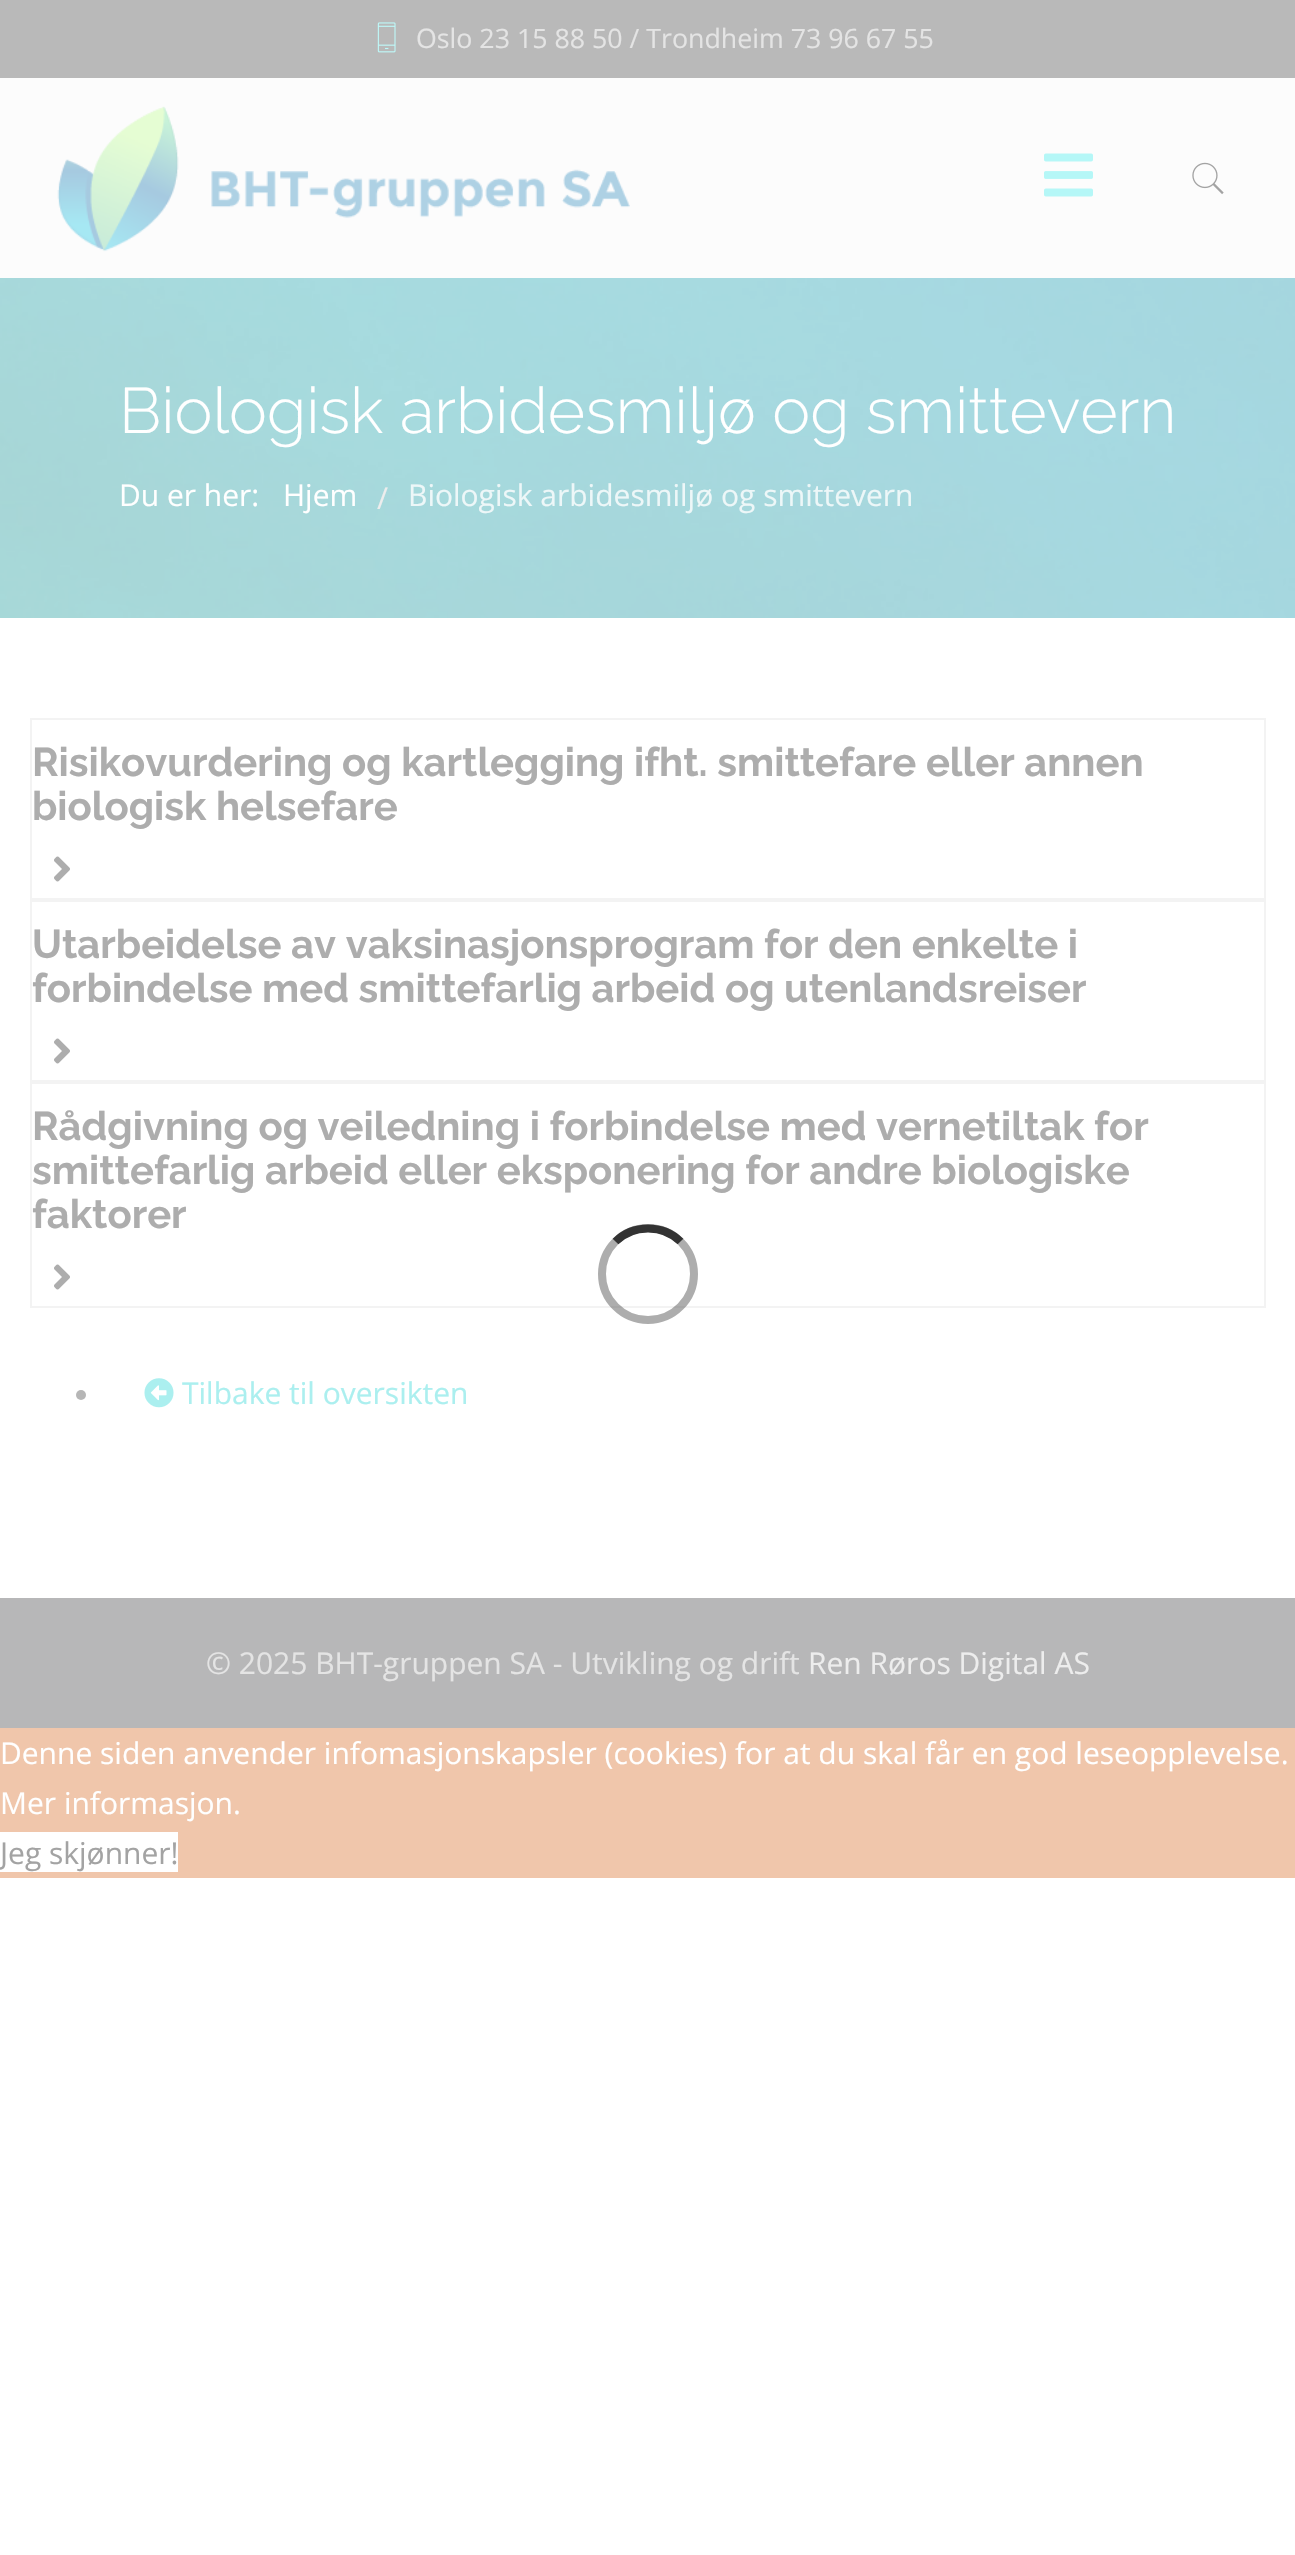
void draw(SkCanvas* canvas) {
  SkPaint paint;
  paint.setAntiAlias(true);
  auto face = [&](const char* family, int weight, float size, bool italic = false) {
    SkFontStyle style(weight, SkFontStyle::kNormal_Width,
      italic ? SkFontStyle::kItalic_Slant : SkFontStyle::kUpright_Slant);
    SkFont result(fontMgr->matchFamilyStyle(family, style), size);
    result.setSubpixel(true);
    return result;
  };
  auto paste = [&](const char* path, float x, float y, float w, float h) {
    auto image = SkImages::DeferredFromEncodedData(SkData::MakeFromFileName(path));
    canvas->drawImageRect(image, SkRect::MakeXYWH(x, y, w, h), SkSamplingOptions());
  };
  auto shape = [&](const char* data, bool evenOdd = false) {
    SkPath result = *SkParsePath::FromSVGString(data);
    if (evenOdd) result.setFillType(SkPathFillType::kEvenOdd);
    return result;
  };
  canvas->clear(0xffffffff);
  paint.setColor(0xffb9b9b9);
  canvas->drawRect(SkRect::MakeXYWH(0, 0, 1295, 78), paint);
  paste("img/1.png", 377, 22, 19, 31);
  paint.setColor(0xfffcfcfc);
  canvas->drawRect(SkRect::MakeXYWH(0, 78, 1295, 200), paint);
  paste("img/2.png", 57, 106, 573, 146);
  paste("img/3.png", 1044, 153, 49, 44);
  paste("img/4.png", 1192, 162, 32, 33);
  paste("img/5.png", 0, 278, 1295, 340);
  paint.setStroke(true);
  paint.setStrokeWidth(2);
  paint.setColor(0xfff3f3f3);
  canvas->drawRect(SkRect::MakeXYWH(31, 719, 1234, 180), paint);
  paste("img/6.png", 54, 856, 16, 26);
  canvas->drawRect(SkRect::MakeXYWH(31, 901, 1234, 180), paint);
  paste("img/6.png", 54, 1038, 16, 26);
  canvas->drawRect(SkRect::MakeXYWH(31, 1083, 1234, 224), paint);
  paste("img/6.png", 54, 1264, 16, 26);
  paint.setStroke(false);
  paint.setColor(0xffb6b6b6);
  canvas->drawCircle(81, 1395, 5, paint);
  paste("img/7.png", 144, 1378, 30, 30);
  paint.setStroke(true);
  paint.setStrokeWidth(8);
  paint.setColor(0x66333333);
  canvas->drawCircle(648, 1274, 46, paint);
  paint.setColor(0xff333333);
  canvas->drawPath(shape("M615.5 1241.5C633 1224 663 1224 680.5 1241.5"), paint);
  paint.setStroke(false);
  {
    const struct { float x, y, w, h; SkColor color; } items[] = {
      {0, 1598, 1295, 130, 0xffb7b7b8},
      {0, 1728, 1295, 150, 0xfff0c6ab},
      {0, 1832, 178, 40, 0xffffffff},
    };
    for (auto [x, y, w, h, color] : items) {
      paint.setColor(color);
      canvas->drawRect(SkRect::MakeXYWH(x, y, w, h), paint);
    }
  }
  auto f0 = face("Open Sans", 400, 26.75f);
  paint.setColor(0xffe4e4e4);
  canvas->drawString("Oslo 23 15 88 50 / Trondheim 73 96 67 55", 416, 48, f0, paint);
  auto f1 = face("Raleway", 300, 64);
  paint.setColor(0xffffffff);
  canvas->drawString("Biologisk arbidesmiljø og smittevern", 119, 433, f1, paint);
  auto f2 = face("Open Sans", 400, 30);
  canvas->drawString("Du er her:", 119, 506, f2, paint);
  canvas->drawString("Hjem", 283, 506, f2, paint);
  paint.setColor(0xffededed);
  canvas->drawString("/", 377, 509, f2, paint);
  paint.setColor(0xffedf7f8);
  canvas->drawString("Biologisk arbidesmiljø og smittevern", 408, 506, f2, paint);
  auto f3 = face("Raleway", 700, 40);
  paint.setColor(0xffadadad);
  {
    const struct { const char* s; float x, y; } items[] = {
      {"Risikovurdering og kartlegging ifht. smittefare eller annen", 32, 776},
      {"biologisk helsefare", 32, 820},
      {"Utarbeidelse av vaksinasjonsprogram for den enkelte i", 32, 958},
      {"forbindelse med smittefarlig arbeid og utenlandsreiser", 32, 1002},
      {"Rådgivning og veiledning i forbindelse med vernetiltak for", 32, 1140},
      {"smittefarlig arbeid eller eksponering for andre biologiske", 32, 1184},
      {"faktorer", 32, 1228},
    };
    for (auto [s, x, y] : items) {
      canvas->drawString(s, x, y, f3, paint);
    }
  }
  paint.setColor(0xffabefef);
  canvas->drawString("Tilbake til oversikten", 182, 1404, f2, paint);
  paint.setColor(0xffe4e4e4);
  canvas->drawString("© 2025 BHT-gruppen SA - Utvikling og drift", 206, 1674, f2, paint);
  paint.setColor(0xffededed);
  canvas->drawString("Ren Røros Digital AS", 808, 1674, f2, paint);
  paint.setColor(0xffffffff);
  {
    const struct { const char* s; float x, y; } items[] = {
      {"Denne siden anvender infomasjonskapsler (cookies) for at du skal får en god leseopplevelse.", 0, 1764},
      {"Mer informasjon", 0, 1814},
      {".", 233, 1814},
    };
    for (auto [s, x, y] : items) {
      canvas->drawString(s, x, y, f2, paint);
    }
  }
  paint.setColor(0xffa3a3a3);
  canvas->drawString("Jeg skjønner!", 0, 1864, f2, paint);
}
